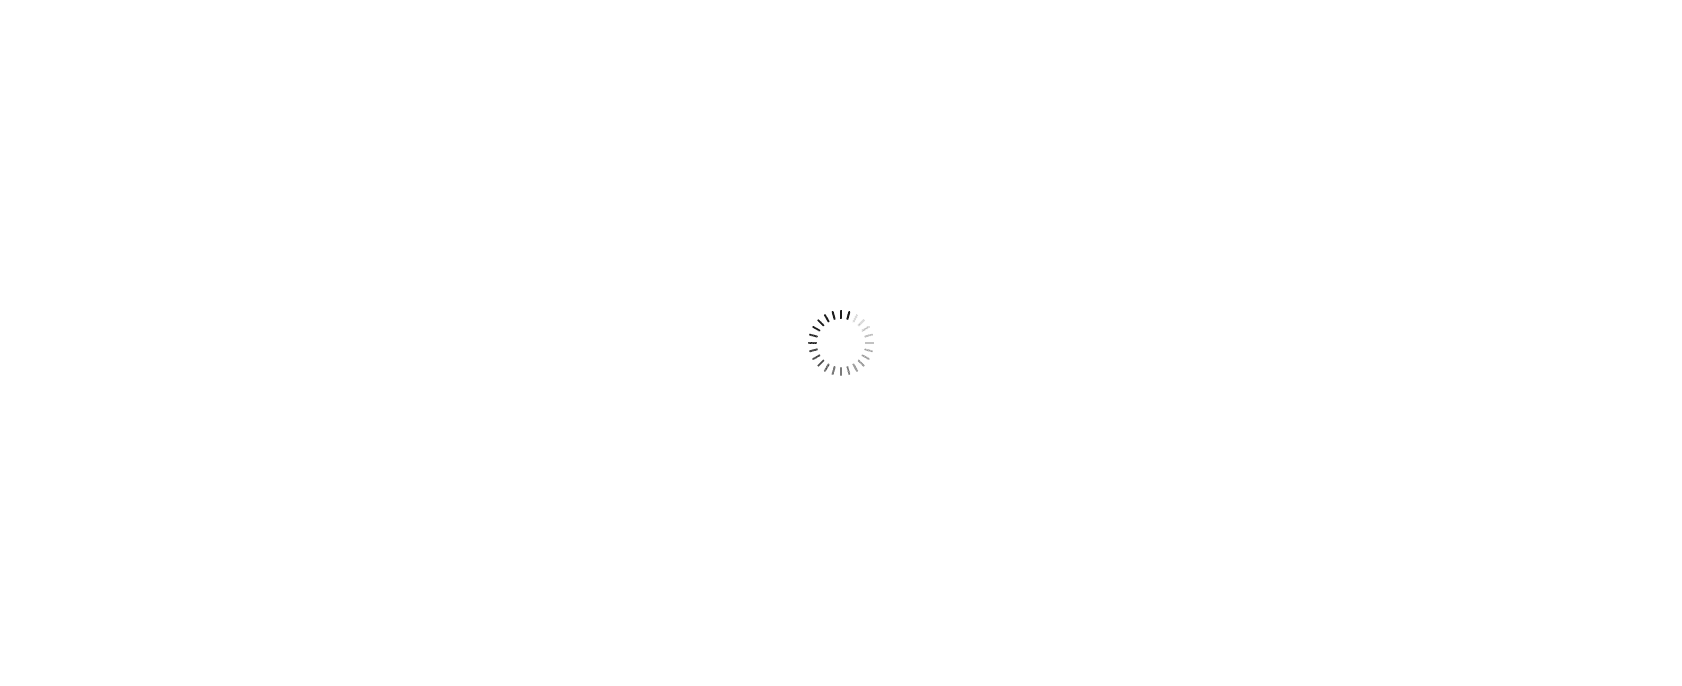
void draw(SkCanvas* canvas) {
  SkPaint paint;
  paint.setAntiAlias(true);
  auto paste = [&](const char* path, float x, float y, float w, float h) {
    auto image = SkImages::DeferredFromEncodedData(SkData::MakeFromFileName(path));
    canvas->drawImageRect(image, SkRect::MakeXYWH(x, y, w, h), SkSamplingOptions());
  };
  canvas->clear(0xffffffff);
  paste("img/1.png", 808, 310, 66, 66);
}
